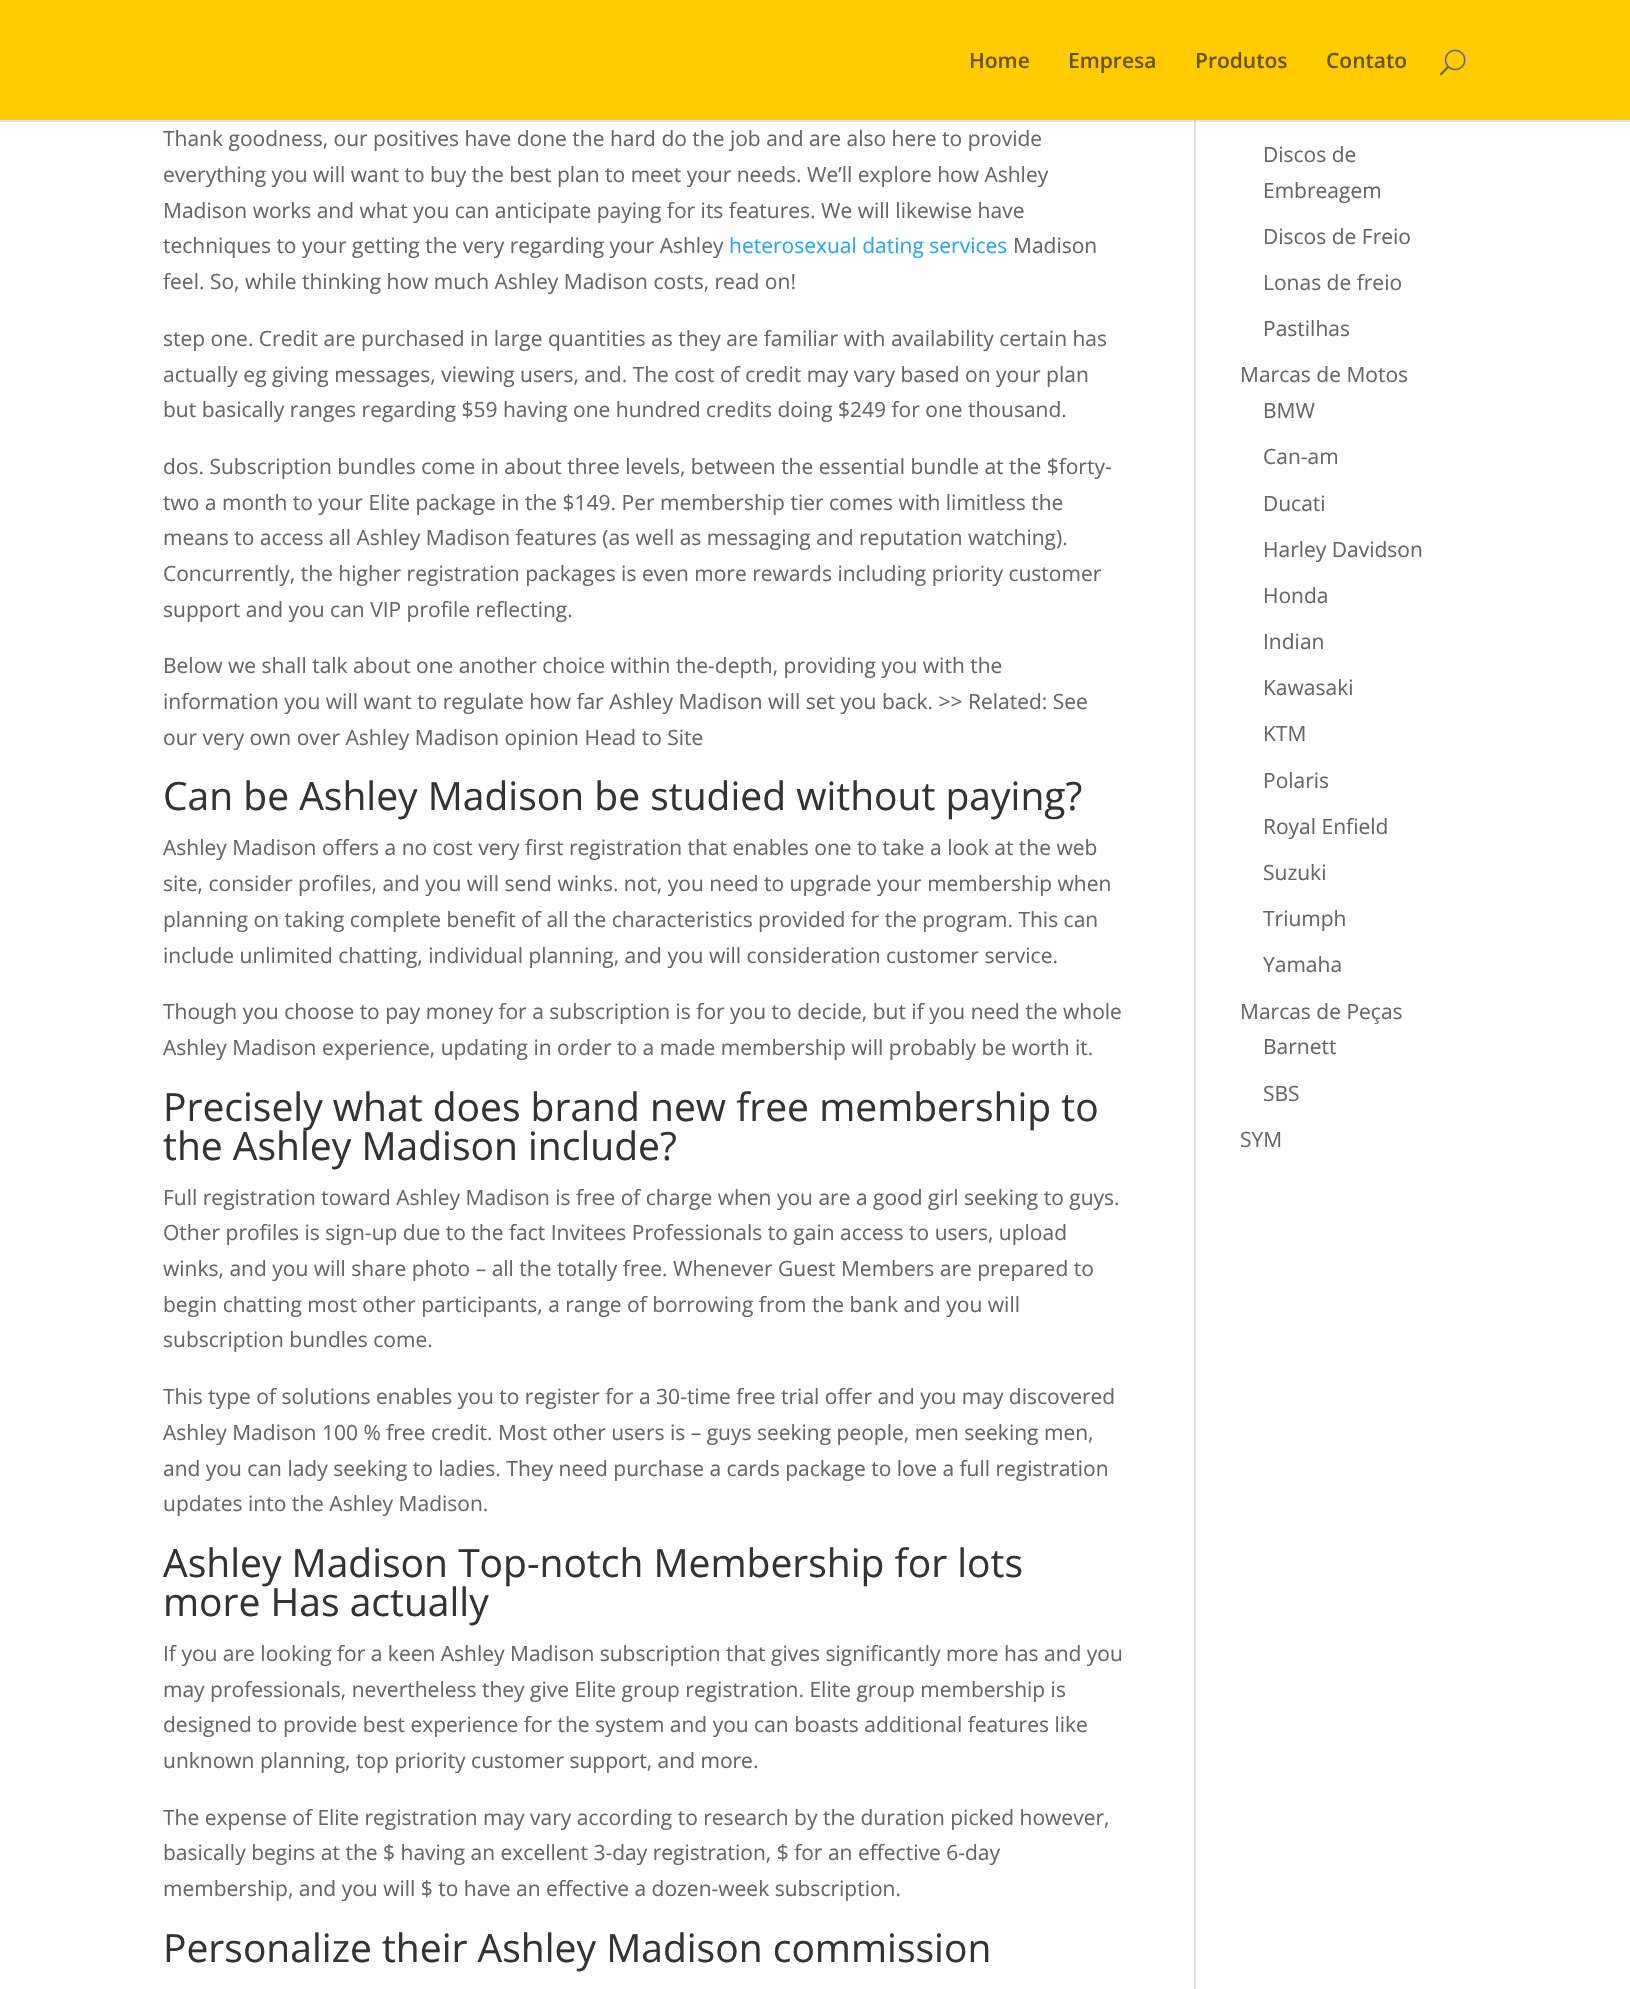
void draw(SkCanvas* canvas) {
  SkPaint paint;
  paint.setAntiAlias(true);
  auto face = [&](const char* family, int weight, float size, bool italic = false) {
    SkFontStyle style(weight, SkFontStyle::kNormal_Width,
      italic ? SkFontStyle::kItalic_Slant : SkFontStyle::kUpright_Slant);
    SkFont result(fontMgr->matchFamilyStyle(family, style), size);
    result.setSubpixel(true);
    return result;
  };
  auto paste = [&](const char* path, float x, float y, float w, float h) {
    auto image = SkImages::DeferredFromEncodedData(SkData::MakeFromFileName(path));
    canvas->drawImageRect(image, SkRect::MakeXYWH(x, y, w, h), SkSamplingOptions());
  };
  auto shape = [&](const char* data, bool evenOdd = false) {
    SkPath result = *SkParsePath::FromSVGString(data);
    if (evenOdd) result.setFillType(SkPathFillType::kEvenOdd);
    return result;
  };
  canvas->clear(0xffffffff);
  paint.setColor(0xffe2e2e2);
  canvas->drawRect(SkRect::MakeXYWH(1194, 120, 2, 1869), paint);
  paint.setColor(0x1a000000);
  canvas->drawPath(shape("M0 120V122H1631V2H1630V120Z"), paint);
  paint.setColor(0xffffcc00);
  canvas->drawRect(SkRect::MakeXYWH(0, 0, 1630, 120), paint);
  paste("img/1.png", 1439, 49, 27, 27);
  auto f0 = face("Open Sans", 600, 21);
  paint.setColor(0xff665200);
  {
    const struct { const char* s; float x, y; } items[] = {
      {"Home", 969, 68},
      {"Empresa", 1068, 68},
      {"Produtos", 1195, 68},
      {"Contato", 1326, 68},
    };
    for (auto [s, x, y] : items) {
      canvas->drawString(s, x, y, f0, paint);
    }
  }
  auto f1 = face("Open Sans", 400, 21);
  paint.setColor(0xff666666);
  {
    const struct { const char* s; float x, y; } items[] = {
      {"Thank goodness, our positives have done the hard do the job and are also here to provide", 163, 146},
      {"everything you will want to buy the best plan to meet your needs. We’ll explore how Ashley", 163, 182},
      {"Madison works and what you can anticipate paying for its features. We will likewise have", 163, 218},
      {"techniques to your getting the very regarding your Ashley", 163, 253},
    };
    for (auto [s, x, y] : items) {
      canvas->drawString(s, x, y, f1, paint);
    }
  }
  paint.setColor(0xff2ea3f2);
  canvas->drawString("heterosexual dating services", 729, 253, f1, paint);
  paint.setColor(0xff666666);
  {
    const struct { const char* s; float x, y; } items[] = {
      {"Madison", 1013, 253},
      {"feel. So, while thinking how much Ashley Madison costs, read on!", 163, 289},
      {"step one. Credit are purchased in large quantities as they are familiar with availability certain has", 163, 346},
      {"actually eg giving messages, viewing users, and. The cost of credit may vary based on your plan", 163, 382},
      {"but basically ranges regarding $59 having one hundred credits doing $249 for one thousand.", 163, 417},
      {"dos. Subscription bundles come in about three levels, between the essential bundle at the $forty-", 163, 474},
      {"two a month to your Elite package in the $149. Per membership tier comes with limitless the", 163, 510},
      {"means to access all Ashley Madison features (as well as messaging and reputation watching).", 163, 545},
      {"Concurrently, the higher registration packages is even more rewards including priority customer", 163, 581},
      {"support and you can VIP profile reflecting.", 163, 617},
      {"Below we shall talk about one another choice within the-depth, providing you with the", 163, 673},
      {"information you will want to regulate how far Ashley Madison will set you back. >> Related: See", 163, 709},
      {"our very own over Ashley Madison opinion Head to Site", 163, 745},
    };
    for (auto [s, x, y] : items) {
      canvas->drawString(s, x, y, f1, paint);
    }
  }
  auto f2 = face("Open Sans", 400, 39);
  paint.setColor(0xff333333);
  canvas->drawString("Can be Ashley Madison be studied without paying?", 163, 810, f2, paint);
  paint.setColor(0xff666666);
  {
    const struct { const char* s; float x, y; } items[] = {
      {"Ashley Madison offers a no cost very first registration that enables one to take a look at the web", 163, 855},
      {"site, consider profiles, and you will send winks. not, you need to upgrade your membership when", 163, 891},
      {"planning on taking complete benefit of all the characteristics provided for the program. This can", 163, 927},
      {"include unlimited chatting, individual planning, and you will consideration customer service.", 163, 963},
      {"Though you choose to pay money for a subscription is for you to decide, but if you need the whole", 163, 1019},
      {"Ashley Madison experience, updating in order to a made membership will probably be worth it.", 163, 1055},
    };
    for (auto [s, x, y] : items) {
      canvas->drawString(s, x, y, f1, paint);
    }
  }
  paint.setColor(0xff333333);
  canvas->drawString("Precisely what does brand new free membership to", 163, 1121, f2, paint);
  canvas->drawString("the Ashley Madison include?", 163, 1160, f2, paint);
  paint.setColor(0xff666666);
  {
    const struct { const char* s; float x, y; } items[] = {
      {"Full registration toward Ashley Madison is free of charge when you are a good girl seeking to guys.", 163, 1205},
      {"Other profiles is sign-up due to the fact Invitees Professionals to gain access to users, upload", 163, 1240},
      {"winks, and you will share photo – all the totally free. Whenever Guest Members are prepared to", 163, 1276},
      {"begin chatting most other participants, a range of borrowing from the bank and you will", 163, 1312},
      {"subscription bundles come.", 163, 1347},
      {"This type of solutions enables you to register for a 30-time free trial offer and you may discovered", 163, 1404},
      {"Ashley Madison 100 % free credit. Most other users is – guys seeking people, men seeking men,", 163, 1440},
      {"and you can lady seeking to ladies. They need purchase a cards package to love a full registration", 163, 1476},
      {"updates into the Ashley Madison.", 163, 1511},
    };
    for (auto [s, x, y] : items) {
      canvas->drawString(s, x, y, f1, paint);
    }
  }
  paint.setColor(0xff333333);
  canvas->drawString("Ashley Madison Top-notch Membership for lots", 163, 1577, f2, paint);
  canvas->drawString("more Has actually", 163, 1616, f2, paint);
  paint.setColor(0xff666666);
  {
    const struct { const char* s; float x, y; } items[] = {
      {"If you are looking for a keen Ashley Madison subscription that gives significantly more has and you", 163, 1661},
      {"may professionals, nevertheless they give Elite group registration. Elite group membership is", 163, 1697},
      {"designed to provide best experience for the system and you can boasts additional features like", 163, 1732},
      {"unknown planning, top priority customer support, and more.", 163, 1768},
      {"The expense of Elite registration may vary according to research by the duration picked however,", 163, 1825},
      {"basically begins at the $ having an excellent 3-day registration, $ for an effective 6-day", 163, 1860},
      {"membership, and you will $ to have an effective a dozen-week subscription.", 163, 1896},
    };
    for (auto [s, x, y] : items) {
      canvas->drawString(s, x, y, f1, paint);
    }
  }
  paint.setColor(0xff333333);
  canvas->drawString("Personalize their Ashley Madison commission", 163, 1962, f2, paint);
  paint.setColor(0xff666666);
  {
    const struct { const char* s; float x, y; } items[] = {
      {"Discos de", 1263, 162},
      {"Embreagem", 1263, 198},
      {"Discos de Freio", 1263, 244},
      {"Lonas de freio", 1263, 290},
      {"Pastilhas", 1263, 336},
      {"Marcas de Motos", 1240, 382},
      {"BMW", 1263, 418},
      {"Can-am", 1263, 464},
      {"Ducati", 1263, 511},
      {"Harley Davidson", 1263, 557},
      {"Honda", 1263, 603},
      {"Indian", 1263, 649},
      {"Kawasaki", 1263, 695},
      {"KTM", 1263, 741},
      {"Polaris", 1263, 788},
      {"Royal Enfield", 1263, 834},
      {"Suzuki", 1263, 880},
      {"Triumph", 1263, 926},
      {"Yamaha", 1263, 972},
      {"Marcas de Peças", 1240, 1019},
      {"Barnett", 1263, 1054},
      {"SBS", 1263, 1101},
      {"SYM", 1240, 1147},
    };
    for (auto [s, x, y] : items) {
      canvas->drawString(s, x, y, f1, paint);
    }
  }
}
